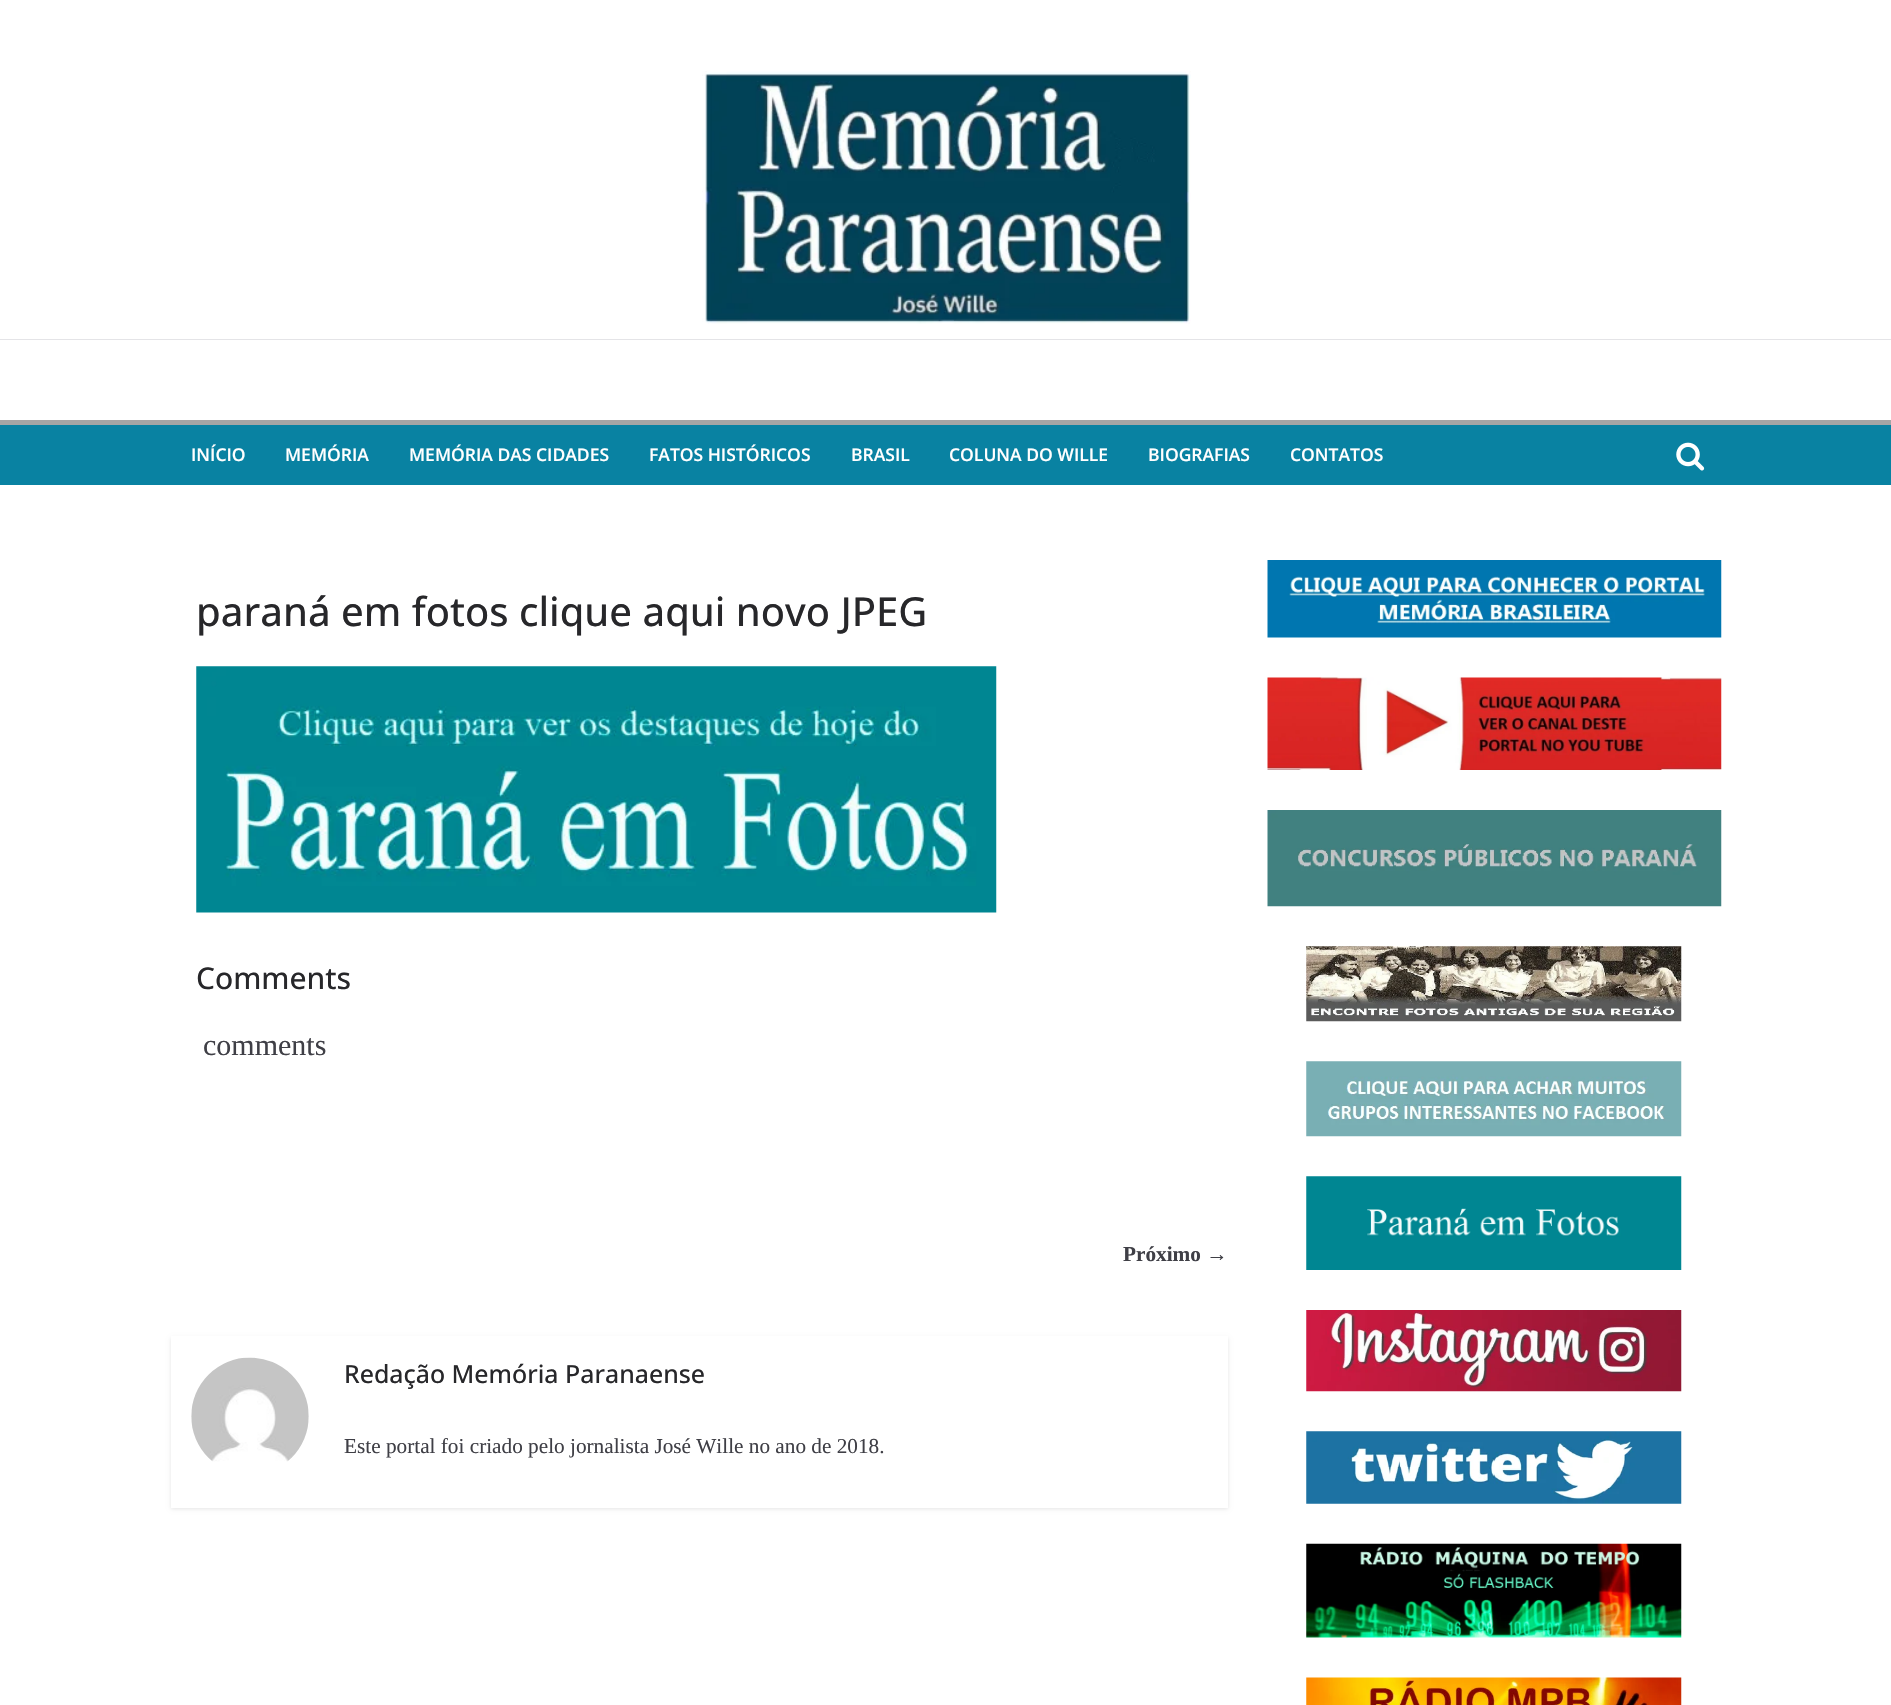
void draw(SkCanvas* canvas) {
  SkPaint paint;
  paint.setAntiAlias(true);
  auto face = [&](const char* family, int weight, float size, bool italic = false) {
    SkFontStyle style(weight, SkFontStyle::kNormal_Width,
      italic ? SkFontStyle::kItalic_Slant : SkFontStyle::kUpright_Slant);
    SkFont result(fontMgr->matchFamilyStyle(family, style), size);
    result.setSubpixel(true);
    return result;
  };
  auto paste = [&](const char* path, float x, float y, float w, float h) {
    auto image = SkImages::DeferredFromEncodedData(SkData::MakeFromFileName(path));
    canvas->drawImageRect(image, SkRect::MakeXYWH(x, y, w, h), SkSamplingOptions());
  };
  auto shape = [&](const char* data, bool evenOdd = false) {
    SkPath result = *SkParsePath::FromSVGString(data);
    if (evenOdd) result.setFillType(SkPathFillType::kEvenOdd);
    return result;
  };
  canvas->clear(0xffffffff);
  paste("img/1.png", 702, 71, 489, 253);
  {
    const struct { float x, y, w, h; SkColor color; } items[] = {
      {0, 339, 1891, 1, 0xffe4e4e7},
      {0, 425, 1891, 60, 0xff0982a2},
      {0, 420, 1891, 5, 0xffa5a5a5},
    };
    for (auto [x, y, w, h, color] : items) {
      paint.setColor(color);
      canvas->drawRect(SkRect::MakeXYWH(x, y, w, h), paint);
    }
  }
  paste("img/2.png", 1676, 442, 29, 29);
  paste("img/3.png", 196, 666, 801, 247);
  canvas->save();
  canvas->clipPath(shape("M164 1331H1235V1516H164ZM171 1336H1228V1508H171Z", true), true);
  paint.setColor(0x1a000000);
  paint.setMaskFilter(SkMaskFilter::MakeBlur(kNormal_SkBlurStyle, 2));
  canvas->drawRect(SkRect::MakeXYWH(171, 1338, 1057, 171), paint);
  paint.setMaskFilter(nullptr);
  canvas->restore();
  paste("img/4.png", 191, 1357, 118, 105);
  paste("img/5.png", 1267, 560, 455, 78);
  paste("img/6.png", 1267, 677, 455, 93);
  paste("img/7.png", 1267, 810, 455, 97);
  paste("img/8.png", 1306, 946, 376, 76);
  paste("img/9.png", 1306, 1061, 376, 76);
  paste("img/10.png", 1306, 1176, 376, 94);
  paste("img/11.png", 1306, 1310, 376, 82);
  paste("img/12.png", 1306, 1431, 376, 73);
  paste("img/13.png", 1306, 1543, 376, 95);
  paste("img/14.png", 1306, 1677, 376, 28);
  auto f0 = face("Open Sans", 600, 17.5f);
  paint.setColor(0xffffffff);
  {
    const struct { const char* s; float x, y; } items[] = {
      {"INÍCIO", 191, 461},
      {"MEMÓRIA", 285, 461},
      {"MEMÓRIA DAS CIDADES", 409, 461},
      {"FATOS HISTÓRICOS", 649, 461},
      {"BRASIL", 851, 461},
      {"COLUNA DO WILLE", 949, 461},
      {"BIOGRAFIAS", 1148, 461},
      {"CONTATOS", 1290, 461},
    };
    for (auto [s, x, y] : items) {
      canvas->drawString(s, x, y, f0, paint);
    }
  }
  auto f1 = face("Open Sans", 500, 40);
  paint.setColor(0xff27272a);
  canvas->drawString("paraná em fotos clique aqui novo JPEG", 196, 626, f1, paint);
  auto f2 = face("Open Sans", 500, 30);
  canvas->drawString("Comments", 196, 989, f2, paint);
  auto f3 = face("Liberation Serif", 400, 30);
  paint.setColor(0xff3f3f46);
  canvas->drawString("comments", 203, 1055, f3, paint);
  auto f4 = face("Liberation Serif", 700, 21.25f);
  canvas->drawString("Próximo →", 1123, 1261, f4, paint);
  auto f5 = face("Open Sans", 500, 25);
  paint.setColor(0xff27272a);
  canvas->drawString("Redação Memória Paranaense", 344, 1383, f5, paint);
  auto f6 = face("Liberation Serif", 400, 21.25f);
  paint.setColor(0xff3f3f46);
  canvas->drawString("Este portal foi criado pelo jornalista José Wille no ano de 2018.", 344, 1453, f6, paint);
}
